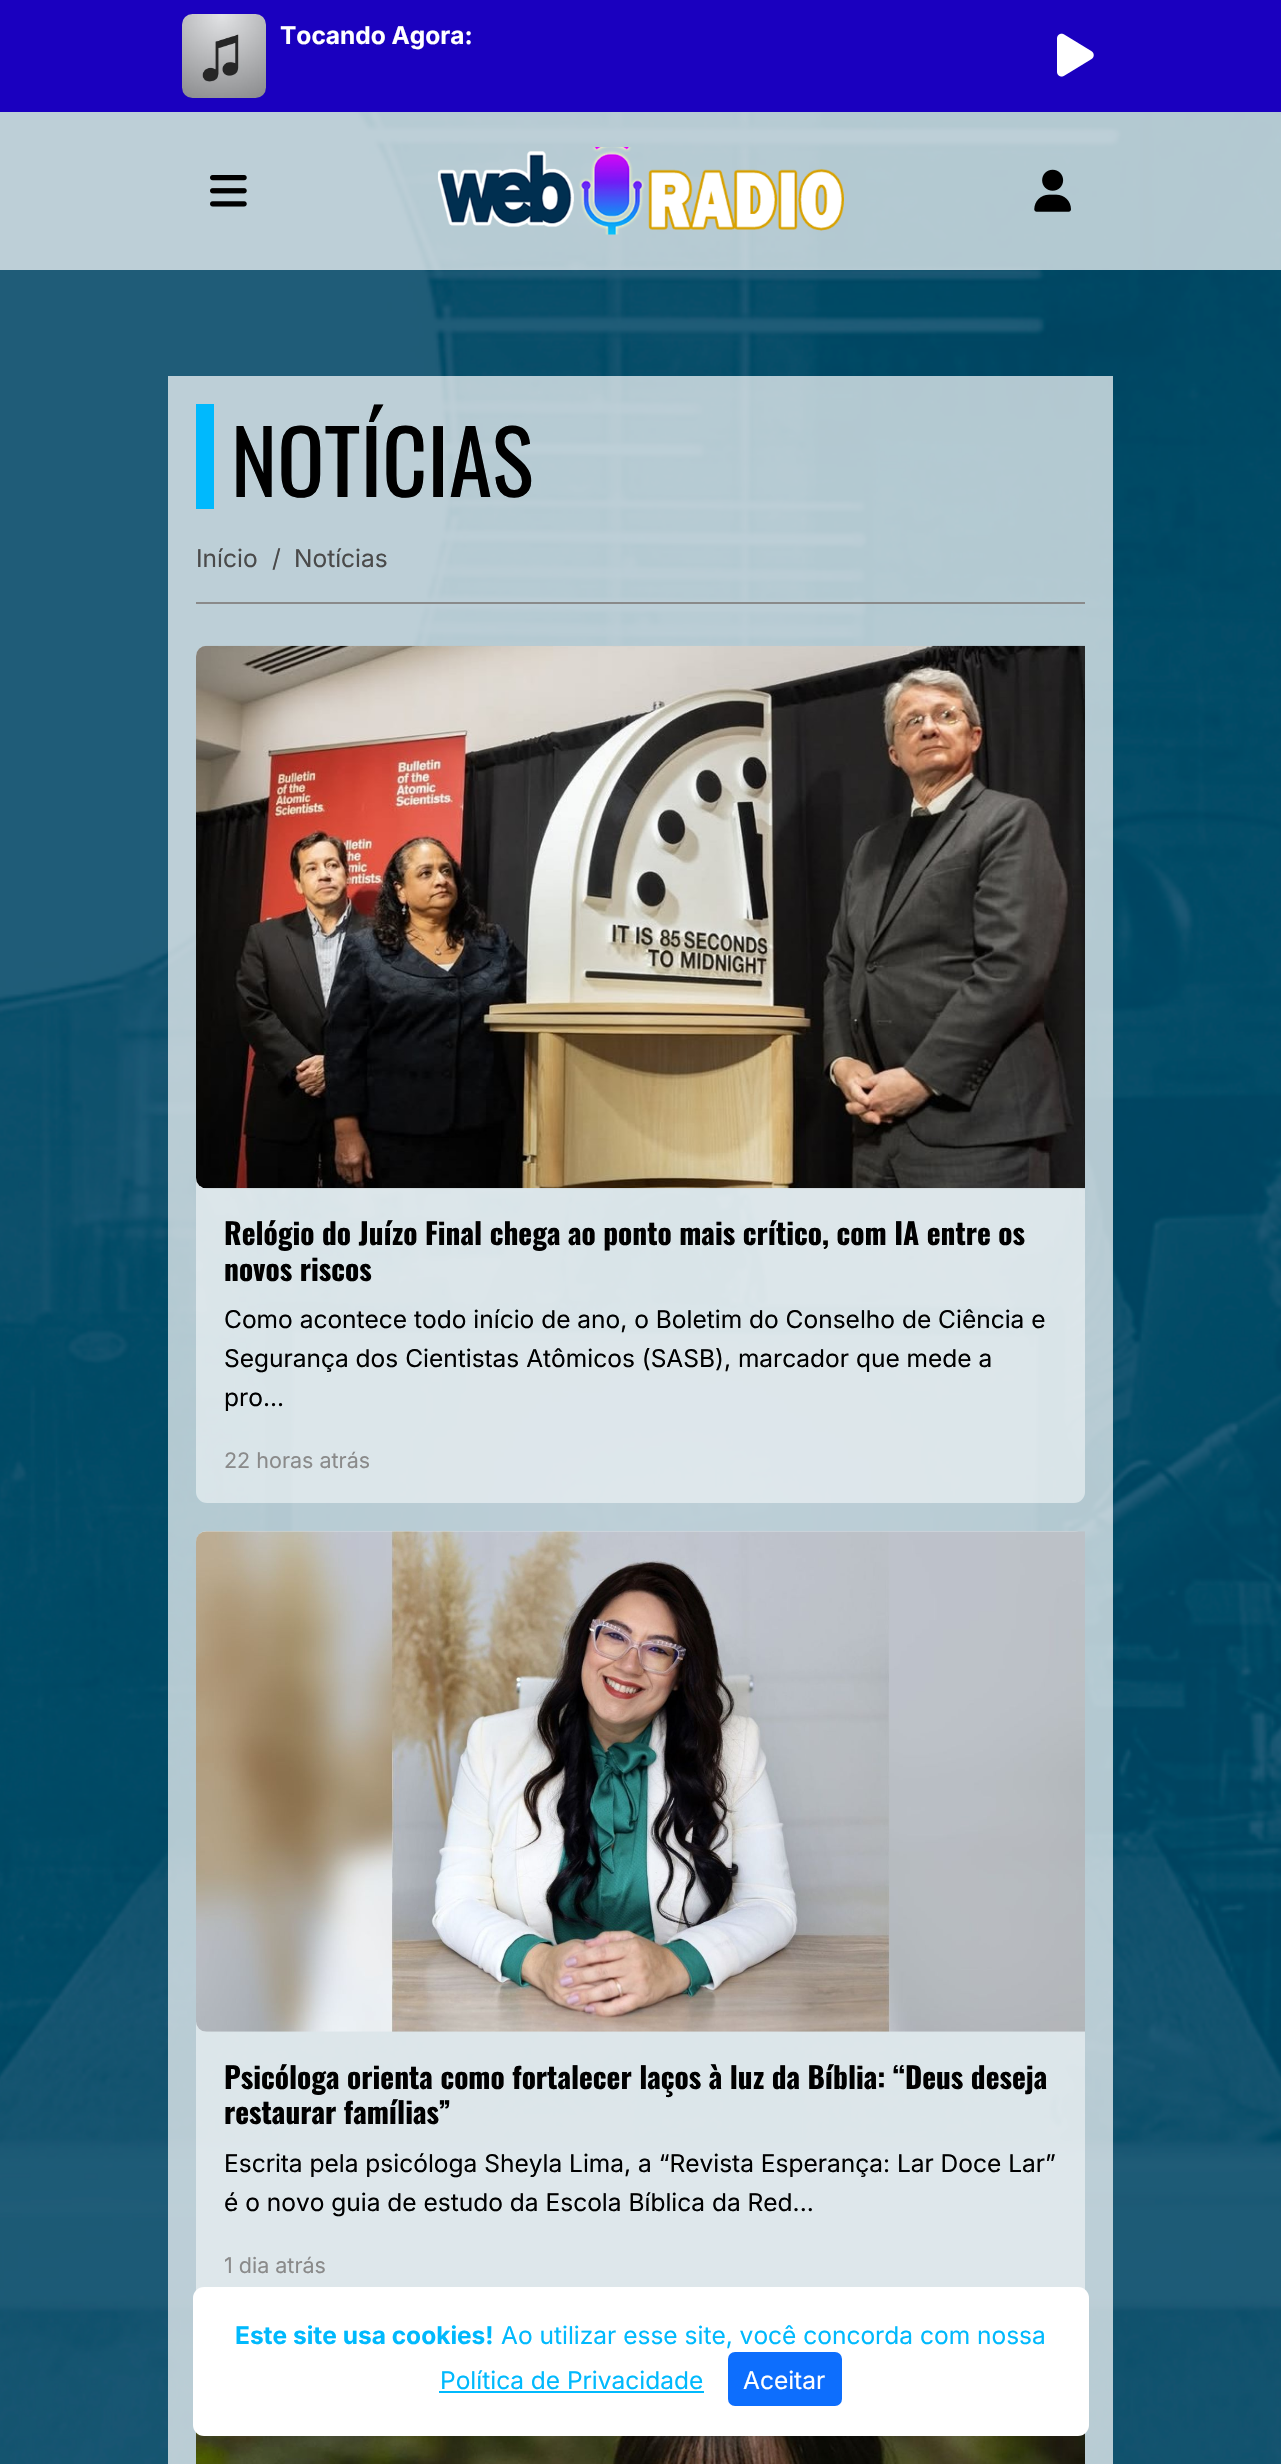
void draw(SkCanvas* canvas) {
  SkPaint paint;
  paint.setAntiAlias(true);
  auto face = [&](const char* family, int weight, float size, bool italic = false) {
    SkFontStyle style(weight, SkFontStyle::kNormal_Width,
      italic ? SkFontStyle::kItalic_Slant : SkFontStyle::kUpright_Slant);
    SkFont result(fontMgr->matchFamilyStyle(family, style), size);
    result.setSubpixel(true);
    return result;
  };
  auto paste = [&](const char* path, float x, float y, float w, float h) {
    auto image = SkImages::DeferredFromEncodedData(SkData::MakeFromFileName(path));
    canvas->drawImageRect(image, SkRect::MakeXYWH(x, y, w, h), SkSamplingOptions());
  };
  canvas->clear(0xffffffff);
  paste("img/1.png", 0, 112, 1281, 2352);
  paint.setColor(0xff1a00bf);
  canvas->drawRect(SkRect::MakeXYWH(0, 0, 1281, 112), paint);
  paste("img/2.png", 182, 14, 84, 84);
  paste("img/3.png", 1057, 33, 37, 44);
  paint.setColor(0xb3ffffff);
  canvas->drawRect(SkRect::MakeXYWH(0, 112, 1281, 158), paint);
  paste("img/4.png", 210, 175, 37, 32);
  paste("img/5.png", 437, 147, 407, 88);
  paste("img/6.png", 1034, 169, 37, 43);
  {
    const struct { float x, y, w, h; SkColor color; } items[] = {
      {168, 376, 945, 2088, 0xb3ffffff},
      {196, 404, 18, 105, 0xff00b9fd},
      {196, 602, 889, 2, 0xff8a8a8a},
    };
    for (auto [x, y, w, h, color] : items) {
      paint.setColor(color);
      canvas->drawRect(SkRect::MakeXYWH(x, y, w, h), paint);
    }
  }
  paint.setColor(0x80ffffff);
  canvas->drawRoundRect(SkRect::MakeXYWH(196, 646, 889, 857), 11, 11, paint);
  paste("img/7.png", 196, 645, 889, 544);
  canvas->drawRoundRect(SkRect::MakeXYWH(196, 1531, 889, 777), 11, 11, paint);
  paste("img/8.png", 196, 1531, 889, 501);
  paste("img/9.png", 196, 2432, 889, 32);
  paint.setColor(0xffffffff);
  canvas->drawRoundRect(SkRect::MakeXYWH(193, 2287, 896, 149), 11, 11, paint);
  paint.setColor(0xff00b9fd);
  canvas->drawRect(SkRect::MakeXYWH(439, 2391, 265, 2), paint);
  paint.setColor(0xff0d6efd);
  canvas->drawRoundRect(SkRect::MakeXYWH(729, 2353, 112, 52), 6, 6, paint);
  paint.setStroke(true);
  paint.setStrokeWidth(2);
  canvas->drawRoundRect(SkRect::MakeXYWH(729, 2353, 112, 52), 6, 6, paint);
  auto f0 = face("Inter", 700, 24.5f);
  paint.setStroke(false);
  paint.setColor(0xffffffff);
  canvas->drawString("Tocando Agora:", 280, 44, f0, paint);
  auto f1 = face("Oswald", 400, 87.5f);
  paint.setColor(0xff000000);
  canvas->drawString("NOTÍCIAS", 231, 497, f1, paint);
  auto f2 = face("Inter", 400, 24.5f);
  paint.setColor(0xff4a4a4a);
  {
    const struct { const char* s; float x, y; } items[] = {
      {"Início", 196, 567},
      {"/", 272, 567},
      {"Notícias", 294, 567},
    };
    for (auto [s, x, y] : items) {
      canvas->drawString(s, x, y, f2, paint);
    }
  }
  auto f3 = face("Oswald", 700, 29.4f);
  paint.setColor(0xff000000);
  canvas->drawString("Relógio do Juízo Final chega ao ponto mais crítico, com IA entre os", 224, 1245, f3, paint);
  canvas->drawString("novos riscos", 224, 1281, f3, paint);
  {
    const struct { const char* s; float x, y; } items[] = {
      {"Como acontece todo início de ano, o Boletim do Conselho de Ciência e", 224, 1328},
      {"Segurança dos Cientistas Atômicos (SASB), marcador que mede a", 224, 1367},
      {"pro...", 224, 1406},
    };
    for (auto [s, x, y] : items) {
      canvas->drawString(s, x, y, f2, paint);
    }
  }
  auto f4 = face("Inter", 400, 21.5f);
  paint.setColor(0xff8a8a8a);
  canvas->drawString("22 horas atrás", 224, 1468, f4, paint);
  paint.setColor(0xff000000);
  canvas->drawString("Psicóloga orienta como fortalecer laços à luz da Bíblia: “Deus deseja", 224, 2089, f3, paint);
  canvas->drawString("restaurar famílias”", 224, 2124, f3, paint);
  canvas->drawString("Escrita pela psicóloga Sheyla Lima, a “Revista Esperança: Lar Doce Lar”", 224, 2172, f2, paint);
  canvas->drawString("é o novo guia de estudo da Escola Bíblica da Red...", 224, 2211, f2, paint);
  paint.setColor(0xff8a8a8a);
  canvas->drawString("1 dia atrás", 224, 2273, f4, paint);
  paint.setColor(0xff00b9fd);
  canvas->drawString("Este site usa cookies!", 235, 2344, f0, paint);
  canvas->drawString("Ao utilizar esse site, você concorda com nossa", 501, 2344, f2, paint);
  canvas->drawString("Política de Privacidade", 440, 2389, f2, paint);
  paint.setColor(0xffffffff);
  canvas->drawString("Aceitar", 743, 2389, f2, paint);
}
